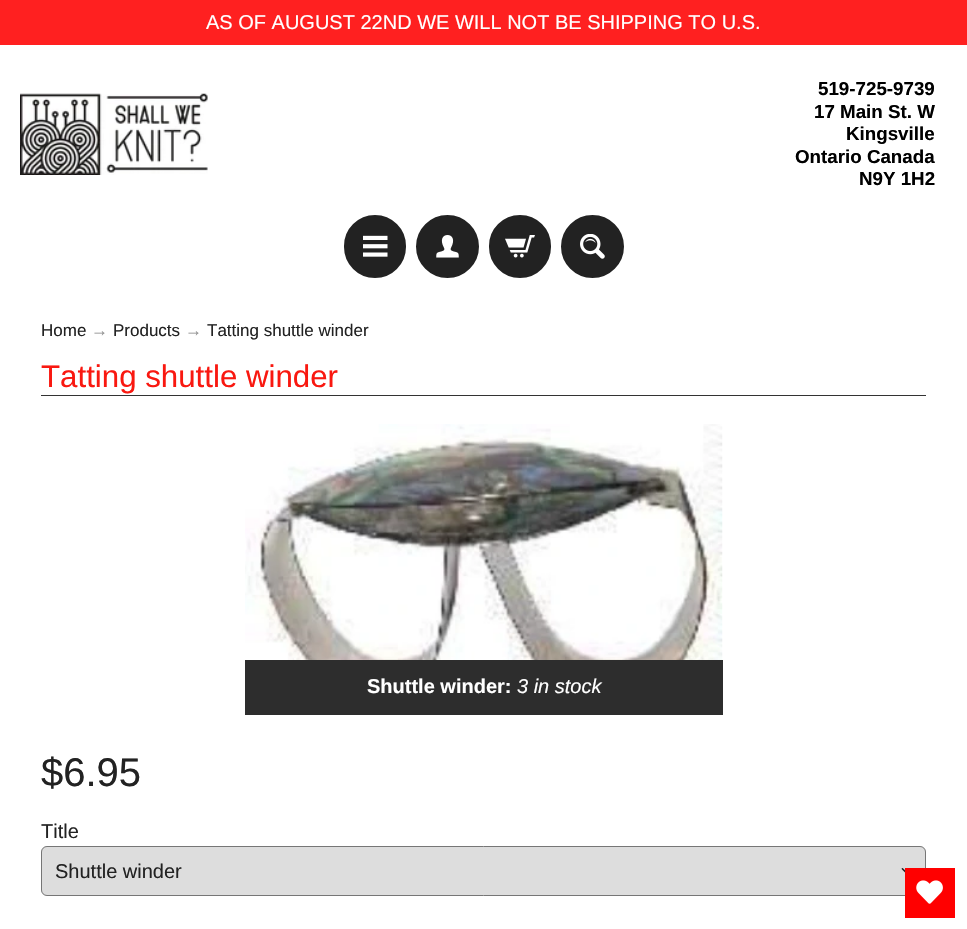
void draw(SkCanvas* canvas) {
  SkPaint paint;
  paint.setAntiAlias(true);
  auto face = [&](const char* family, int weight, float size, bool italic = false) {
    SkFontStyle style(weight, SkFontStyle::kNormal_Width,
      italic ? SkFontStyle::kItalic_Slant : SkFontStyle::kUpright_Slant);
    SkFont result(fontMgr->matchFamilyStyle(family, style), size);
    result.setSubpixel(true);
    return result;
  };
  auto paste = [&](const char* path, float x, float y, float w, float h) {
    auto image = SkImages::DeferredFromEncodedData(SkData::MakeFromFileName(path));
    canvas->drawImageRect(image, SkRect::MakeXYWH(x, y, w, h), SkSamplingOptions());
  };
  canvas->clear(0xffffffff);
  paint.setColor(0xffff2020);
  canvas->drawRect(SkRect::MakeXYWH(0, 0, 967, 45), paint);
  paste("img/1.png", 20, 93, 188, 82);
  paint.setColor(0xff222222);
  canvas->drawRoundRect(SkRect::MakeXYWH(346, 217, 58, 59), 29, 29, paint);
  paint.setStroke(true);
  paint.setStrokeWidth(4);
  canvas->drawRoundRect(SkRect::MakeXYWH(346, 217, 58, 59), 29, 29, paint);
  paste("img/2.png", 363, 235, 25, 22);
  paint.setStroke(false);
  canvas->drawCircle(447.5f, 246.5f, 29.5f, paint);
  paint.setStroke(true);
  canvas->drawCircle(447.5f, 246.5f, 29.5f, paint);
  paste("img/3.png", 436, 235, 23, 23);
  paint.setStroke(false);
  canvas->drawRoundRect(SkRect::MakeXYWH(491, 217, 58, 59), 29, 29, paint);
  paint.setStroke(true);
  canvas->drawRoundRect(SkRect::MakeXYWH(491, 217, 58, 59), 29, 29, paint);
  paste("img/4.png", 505, 235, 30, 23);
  paint.setStroke(false);
  canvas->drawCircle(592.5f, 246.5f, 29.5f, paint);
  paint.setStroke(true);
  canvas->drawCircle(592.5f, 246.5f, 29.5f, paint);
  paste("img/5.png", 580, 234, 25, 25);
  paint.setStroke(false);
  paint.setColor(0xff333333);
  canvas->drawRect(SkRect::MakeXYWH(41, 395, 885, 1), paint);
  paste("img/6.png", 245, 424, 478, 236);
  paint.setColor(0xff2d2d2d);
  canvas->drawRect(SkRect::MakeXYWH(245, 660, 478, 55), paint);
  paint.setColor(0xffdddddd);
  canvas->drawRoundRect(SkRect::MakeXYWH(41, 846, 885, 50), 6, 6, paint);
  paste("img/7.png", 901, 868, 4, 5);
  paint.setStroke(true);
  paint.setStrokeWidth(1);
  paint.setColor(0xff767676);
  canvas->drawRoundRect(SkRect::MakeXYWH(41.5f, 846.5f, 884, 49), 5.5f, 5.5f, paint);
  paint.setStroke(false);
  paint.setColor(0xffff0000);
  canvas->drawRect(SkRect::MakeXYWH(905, 868, 50, 50), paint);
  paste("img/8.png", 916, 880, 27, 24);
  auto f0 = face("Liberation Sans", 400, 20);
  paint.setColor(0xffffffff);
  canvas->drawString("AS OF AUGUST 22ND WE WILL NOT BE SHIPPING TO U.S.", 206, 29, f0, paint);
  auto f1 = face("Liberation Sans", 700, 18.75f);
  paint.setColor(0xff000000);
  {
    const struct { const char* s; float x, y; } items[] = {
      {"519-725-9739", 818, 95},
      {"17 Main St. W", 814, 118},
      {"Kingsville", 846, 140},
      {"Ontario Canada", 795, 163},
      {"N9Y 1H2", 859, 185},
    };
    for (auto [s, x, y] : items) {
      canvas->drawString(s, x, y, f1, paint);
    }
  }
  auto f2 = face("Liberation Sans", 400, 17);
  paint.setColor(0xff222222);
  canvas->drawString("Home", 41, 336, f2, paint);
  paint.setColor(0xff919191);
  canvas->drawString("→", 91, 336, f2, paint);
  paint.setColor(0xff222222);
  canvas->drawString("Products", 113, 336, f2, paint);
  paint.setColor(0xff919191);
  canvas->drawString("→", 185, 336, f2, paint);
  paint.setColor(0xff222222);
  canvas->drawString("Tatting shuttle winder", 207, 336, f2, paint);
  auto f3 = face("Liberation Sans", 400, 31.25f);
  paint.setColor(0xfff91810);
  canvas->drawString("Tatting shuttle winder", 41, 387, f3, paint);
  auto f4 = face("Liberation Sans", 700, 20);
  paint.setColor(0xffffffff);
  canvas->drawString("Shuttle winder:", 367, 693, f4, paint);
  auto f5 = face("Liberation Sans", 400, 20, true);
  canvas->drawString("3 in stock", 517, 693, f5, paint);
  auto f6 = face("Liberation Sans", 400, 40);
  paint.setColor(0xff222222);
  canvas->drawString("$6.95", 41, 786, f6, paint);
  canvas->drawString("Title", 41, 838, f0, paint);
  canvas->drawString("Shuttle winder", 55, 878, f0, paint);
}
